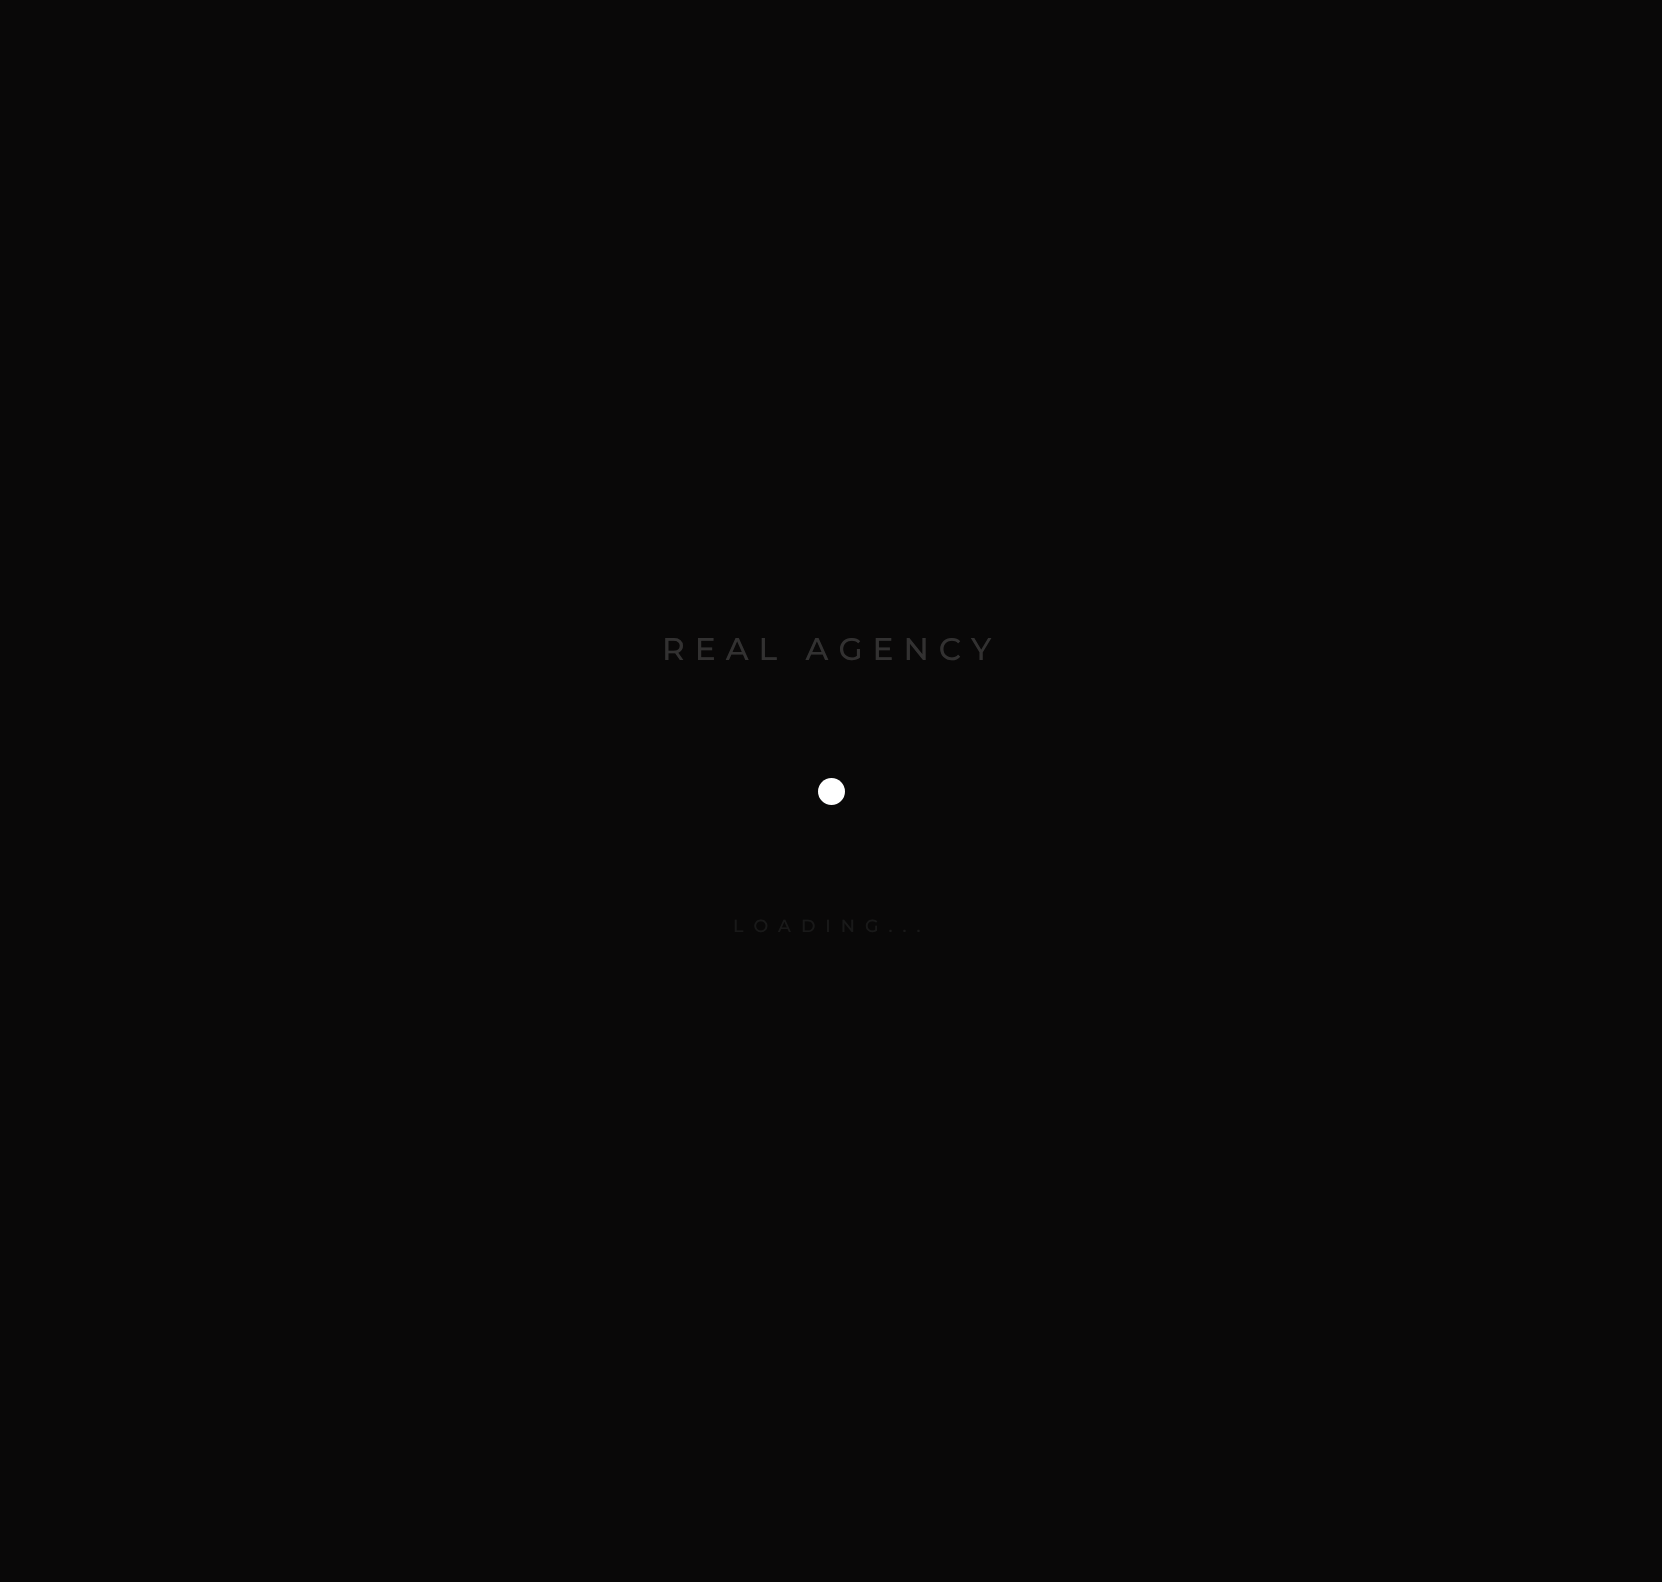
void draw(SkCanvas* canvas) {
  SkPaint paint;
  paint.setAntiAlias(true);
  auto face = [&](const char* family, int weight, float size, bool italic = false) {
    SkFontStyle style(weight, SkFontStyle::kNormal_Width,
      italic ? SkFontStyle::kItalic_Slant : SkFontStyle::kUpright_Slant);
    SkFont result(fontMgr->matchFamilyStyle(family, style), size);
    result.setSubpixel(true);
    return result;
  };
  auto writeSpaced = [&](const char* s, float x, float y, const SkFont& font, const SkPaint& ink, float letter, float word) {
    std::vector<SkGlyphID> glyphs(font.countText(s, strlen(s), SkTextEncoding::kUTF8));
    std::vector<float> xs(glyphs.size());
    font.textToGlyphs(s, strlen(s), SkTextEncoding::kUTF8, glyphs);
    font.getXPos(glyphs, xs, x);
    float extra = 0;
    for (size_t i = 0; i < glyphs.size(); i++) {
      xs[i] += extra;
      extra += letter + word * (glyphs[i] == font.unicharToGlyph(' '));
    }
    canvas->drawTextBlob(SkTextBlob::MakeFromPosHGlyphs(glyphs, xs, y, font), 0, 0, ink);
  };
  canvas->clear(0xff090808);
  paint.setColor(0xffffffff);
  canvas->drawCircle(831.5f, 791.5f, 13.5f, paint);
  auto f0 = face("Montserrat", 500, 31.25f);
  paint.setColor(0xff323131);
  writeSpaced("REAL AGENCY", 662, 660, f0, paint, 10, 0);
  auto f1 = face("Montserrat", 500, 17.5f);
  paint.setColor(0xff191919);
  writeSpaced("LOADING...", 733, 932, f1, paint, 10, 0);
}
